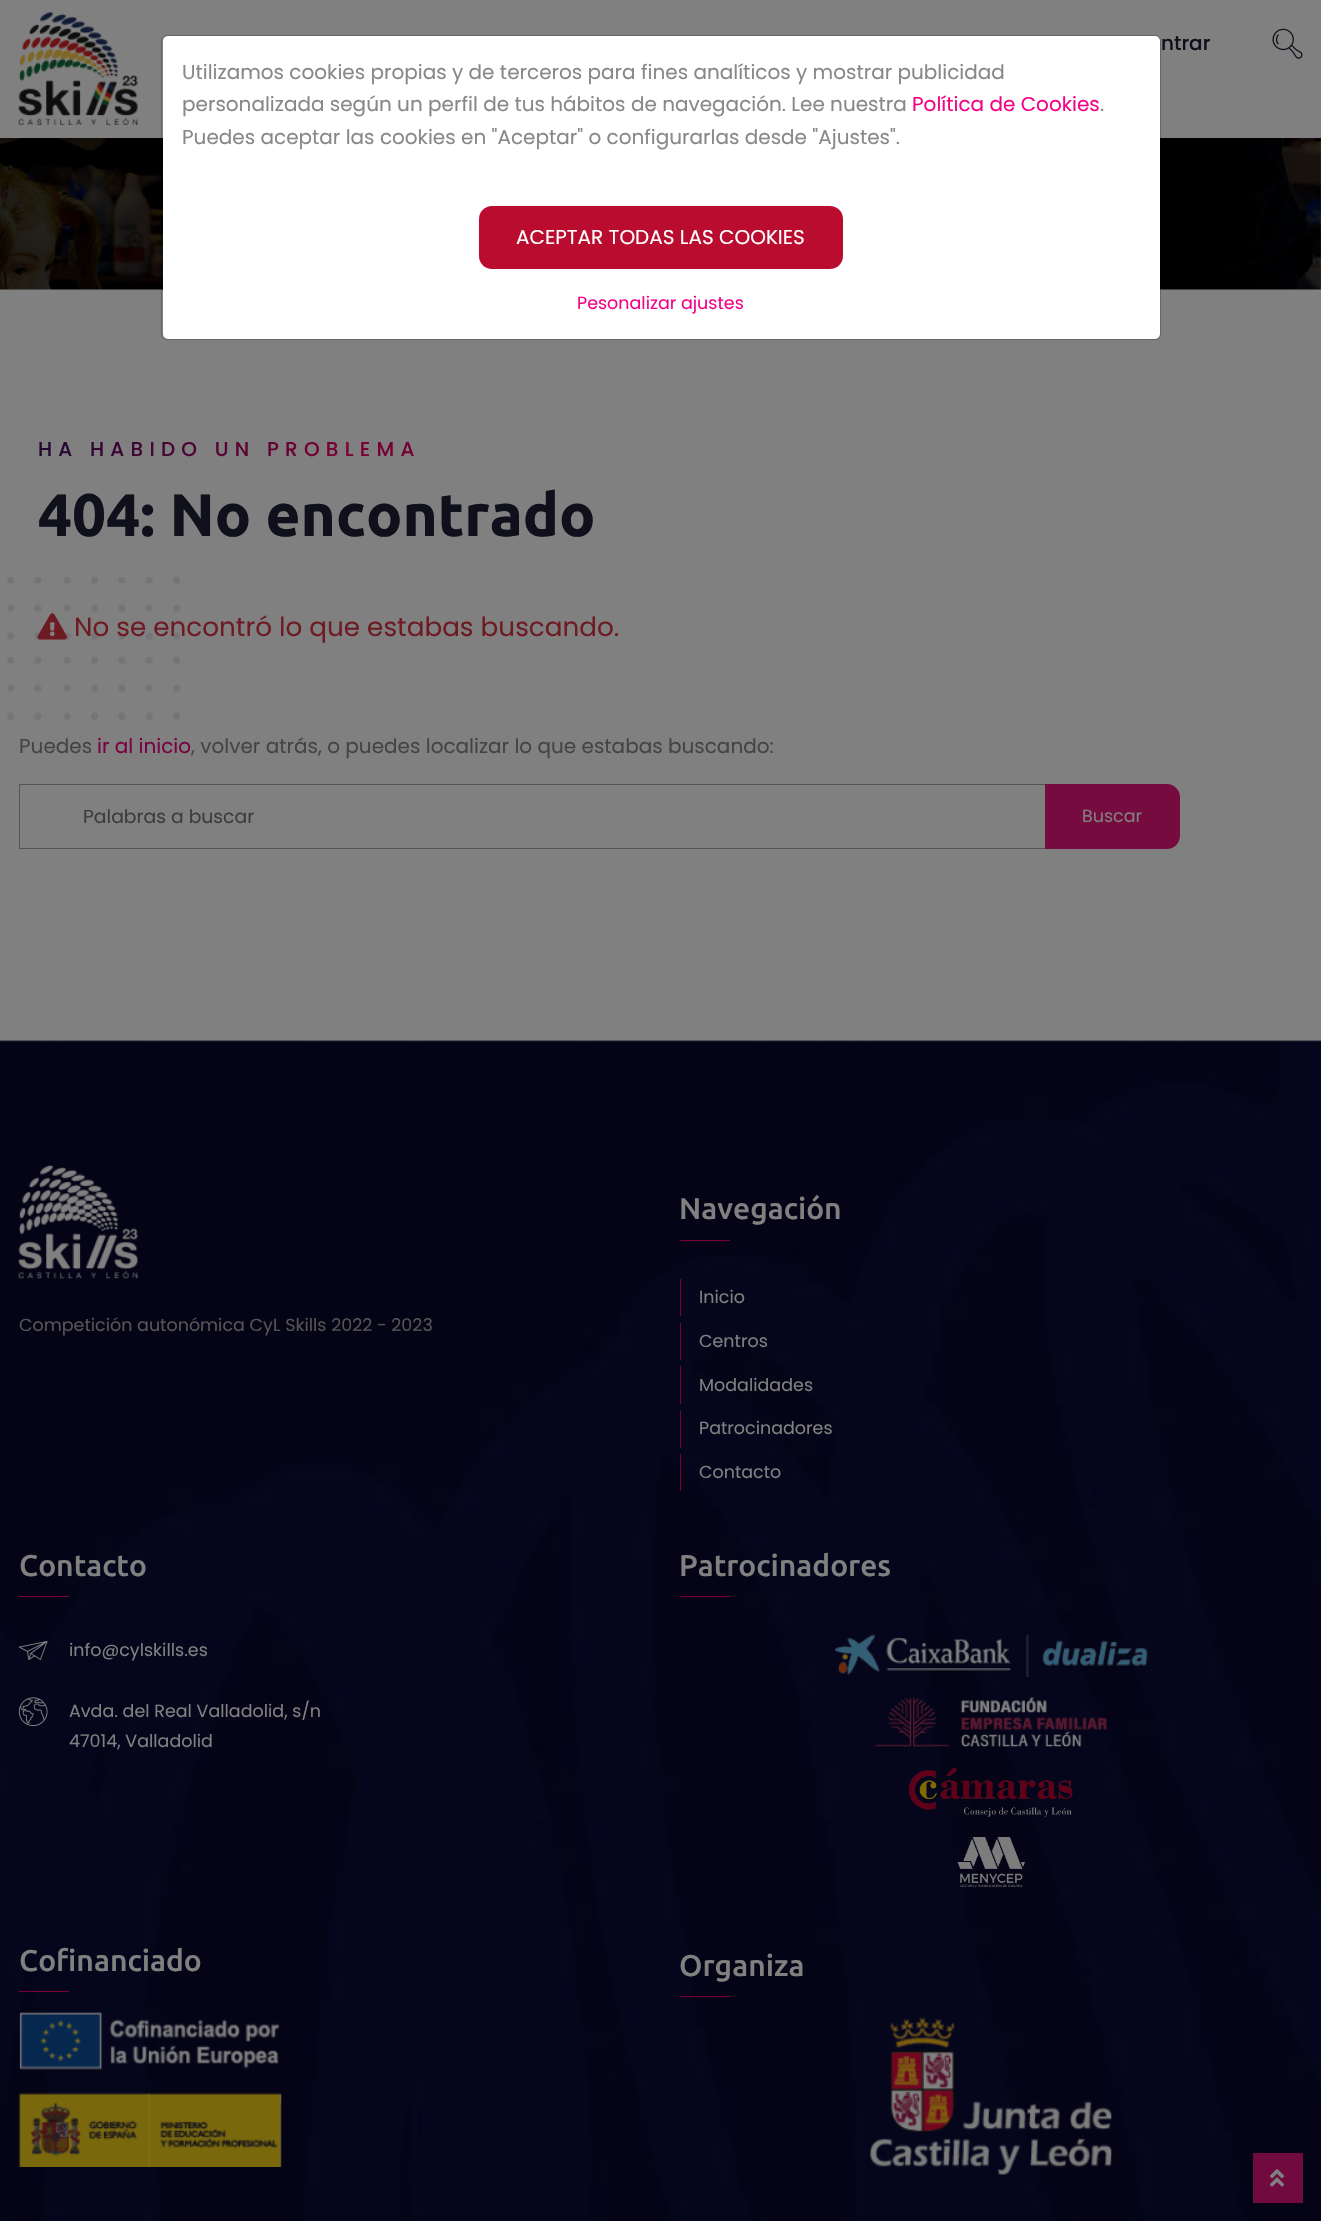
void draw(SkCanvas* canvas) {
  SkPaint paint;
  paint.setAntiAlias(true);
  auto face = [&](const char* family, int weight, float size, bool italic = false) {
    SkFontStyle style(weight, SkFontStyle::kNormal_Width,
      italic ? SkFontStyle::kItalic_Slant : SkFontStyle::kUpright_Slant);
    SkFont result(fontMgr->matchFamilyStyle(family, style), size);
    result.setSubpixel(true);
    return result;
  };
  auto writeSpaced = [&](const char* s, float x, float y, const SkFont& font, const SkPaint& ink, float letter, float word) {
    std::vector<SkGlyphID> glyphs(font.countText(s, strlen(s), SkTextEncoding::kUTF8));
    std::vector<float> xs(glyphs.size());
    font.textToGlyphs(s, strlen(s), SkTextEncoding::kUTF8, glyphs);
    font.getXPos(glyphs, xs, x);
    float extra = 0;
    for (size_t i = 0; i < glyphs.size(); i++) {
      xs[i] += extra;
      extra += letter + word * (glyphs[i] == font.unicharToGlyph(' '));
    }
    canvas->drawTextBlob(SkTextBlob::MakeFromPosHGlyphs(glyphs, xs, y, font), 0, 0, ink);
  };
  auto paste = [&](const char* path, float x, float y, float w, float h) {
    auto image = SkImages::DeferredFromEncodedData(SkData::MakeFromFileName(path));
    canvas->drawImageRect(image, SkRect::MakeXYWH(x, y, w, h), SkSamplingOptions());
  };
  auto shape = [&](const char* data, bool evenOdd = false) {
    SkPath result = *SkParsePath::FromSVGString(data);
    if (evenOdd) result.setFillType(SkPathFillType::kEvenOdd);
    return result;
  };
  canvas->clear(0xff808080);
  paste("img/3.png", 0, 138, 1321, 152);
  paint.setColor(0x1a000000);
  paint.setMaskFilter(SkMaskFilter::MakeBlur(kNormal_SkBlurStyle, 3));
  canvas->drawRect(SkRect::MakeXYWH(0, 0, 1321, 138), paint);
  paint.setMaskFilter(nullptr);
  paint.setColor(0xff808080);
  canvas->drawRect(SkRect::MakeXYWH(0, 0, 1321, 138), paint);
  paste("img/1.png", 18, 12, 120, 113);
  paste("img/2.png", 1272, 28, 31, 31);
  paste("img/5.png", 7, 577, 173, 143);
  paste("img/4.png", 37, 613, 30, 27);
  paint.setStroke(true);
  paint.setStrokeWidth(1);
  paint.setColor(0xff555555);
  canvas->drawRect(SkRect::MakeXYWH(19.5f, 784.5f, 1026, 64), paint);
  paint.setStroke(false);
  paint.setColor(0xff760b40);
  canvas->drawPath(shape("M1045 784H1167C1174 784 1180 790 1180 797V836C1180 843 1174 849 1167 849H1045Z"), paint);
  paste("img/6.png", 0, 1040, 1321, 1181);
  paste("img/7.png", 18, 1165, 120, 114);
  {
    const struct { float x, y, w, h; SkColor color; } items[] = {
      {680, 1240, 50, 1, 0xff7c0034},
      {680, 1279, 1, 37, 0xff7c0034},
      {680, 1323, 1, 37, 0xff7c0034},
      {680, 1366, 1, 38, 0xff7c0034},
      {680, 1410, 1, 38, 0xff7c0034},
      {680, 1454, 1, 37, 0xff7c0034},
      {19, 1596, 50, 1, 0xff7c0034},
    };
    for (auto [x, y, w, h, color] : items) {
      paint.setColor(color);
      canvas->drawRect(SkRect::MakeXYWH(x, y, w, h), paint);
    }
  }
  paste("img/8.png", 18, 1641, 30, 19);
  paste("img/9.png", 18, 1697, 30, 30);
  canvas->drawRect(SkRect::MakeXYWH(19, 1991, 50, 1), paint);
  paste("img/10.png", 18, 2012, 264, 155);
  canvas->drawRect(SkRect::MakeXYWH(680, 1596, 50, 1), paint);
  paste("img/11.png", 835, 1634, 313, 43);
  paste("img/12.png", 875, 1697, 233, 50);
  paste("img/13.png", 908, 1767, 165, 50);
  paste("img/14.png", 957, 1837, 68, 50);
  canvas->drawRect(SkRect::MakeXYWH(680, 1996, 50, 1), paint);
  paste("img/15.png", 870, 2017, 242, 158);
  paint.setColor(0xffffffff);
  canvas->drawRoundRect(SkRect::MakeXYWH(163, 36, 997, 303), 5, 5, paint);
  paint.setStroke(true);
  paint.setColor(0x33000000);
  canvas->drawRoundRect(SkRect::MakeXYWH(161.5f, 35.5f, 999, 304), 5.5f, 5.5f, paint);
  paint.setStroke(false);
  paint.setColor(0xffba0c2f);
  canvas->drawRoundRect(SkRect::MakeXYWH(479, 206, 364, 63), 13, 13, paint);
  paint.setColor(0xff710a3e);
  canvas->drawRect(SkRect::MakeXYWH(1253, 2153, 50, 50), paint);
  paste("img/16.png", 1270, 2169, 14, 18);
  auto f0 = face("Poppins", 500, 20);
  paint.setColor(0xff0f101b);
  canvas->drawString("ntrar", 1161, 50, f0, paint);
  {
    const SkColor colors[] = {0xff7c0034, 0xff220833, 0xff7c0034, 0xff220833};
    const float stops[] = {0, 0.25f, 0.75f, 1};
    const SkPoint ends[] = {{1284, 450}, {38, 450}};
    paint.setShader(SkGradientShader::MakeLinear(ends, colors, stops, 4, SkTileMode::kClamp));
    paint.setAlpha(255);
  }
  writeSpaced("HA HABIDO UN PROBLEMA", 38, 456, f0, paint, 6.25f, 0);
  auto f1 = face("Ubuntu", 700, 60);
  paint.setShader(nullptr);
  paint.setColor(0xff0f101b);
  canvas->drawString("404: No encontrado", 38, 536, f1, paint);
  auto f2 = face("Poppins", 400, 26.25f);
  paint.setColor(0xff6e1b23);
  canvas->drawString("No se encontró lo que estabas buscando.", 74, 636, f2, paint);
  auto f3 = face("Poppins", 400, 20);
  paint.setColor(0xff444444);
  canvas->drawString("Puedes", 19, 753, f3, paint);
  paint.setColor(0xff790244);
  canvas->drawString("ir al inicio", 97, 753, f3, paint);
  paint.setColor(0xff444444);
  canvas->drawString(", volver atrás, o puedes localizar lo que estabas buscando:", 191, 753, f3, paint);
  auto f4 = face("Poppins", 400, 18.75f);
  paint.setColor(0xff3c3c3c);
  canvas->drawString("Palabras a buscar", 83, 823, f4, paint);
  auto f5 = face("Poppins", 400, 17.5f);
  paint.setColor(0xff808080);
  canvas->drawString("Buscar", 1082, 822, f5, paint);
  paint.setColor(0xff555555);
  canvas->drawString("Competición autonómica CyL Skills 2022 - 2023", 19, 1331, f5, paint);
  auto f6 = face("Ubuntu", 500, 30);
  paint.setColor(0xff808080);
  canvas->drawString("Navegación", 679, 1219, f6, paint);
  {
    const struct { const char* s; float x, y; } items[] = {
      {"Inicio", 699, 1303},
      {"Centros", 699, 1347},
      {"Modalidades", 699, 1391},
      {"Patrocinadores", 699, 1434},
      {"Contacto", 699, 1478},
    };
    for (auto [s, x, y] : items) {
      canvas->drawString(s, x, y, f5, paint);
    }
  }
  canvas->drawString("Contacto", 19, 1576, f6, paint);
  {
    const struct { const char* s; float x, y; } items[] = {
      {"info@cylskills.es", 69, 1656},
      {"Avda. del Real Valladolid, s/n", 69, 1717},
      {"47014, Valladolid", 69, 1747},
    };
    for (auto [s, x, y] : items) {
      canvas->drawString(s, x, y, f5, paint);
    }
  }
  {
    const struct { const char* s; float x, y; } items[] = {
      {"Cofinanciado", 19, 1971},
      {"Patrocinadores", 679, 1576},
      {"Organiza", 679, 1976},
    };
    for (auto [s, x, y] : items) {
      canvas->drawString(s, x, y, f6, paint);
    }
  }
  paint.setColor(0xff888888);
  canvas->drawString("Utilizamos cookies propias y de terceros para fines analíticos y mostrar publicidad", 182, 79, f3, paint);
  canvas->drawString("personalizada según un perfil de tus hábitos de navegación. Lee nuestra", 182, 111, f3, paint);
  paint.setColor(0xfff20487);
  canvas->drawString("Política de Cookies", 912, 111, f3, paint);
  paint.setColor(0xff888888);
  canvas->drawString(".", 1100, 111, f3, paint);
  canvas->drawString("Puedes aceptar las cookies en \"Aceptar\" o configurarlas desde \"Ajustes\".", 182, 144, f3, paint);
  paint.setColor(0xffffffff);
  canvas->drawString("ACEPTAR TODAS LAS COOKIES", 516, 244, f3, paint);
  paint.setColor(0xfff20487);
  canvas->drawString("Pesonalizar ajustes", 577, 309, f5, paint);
}
